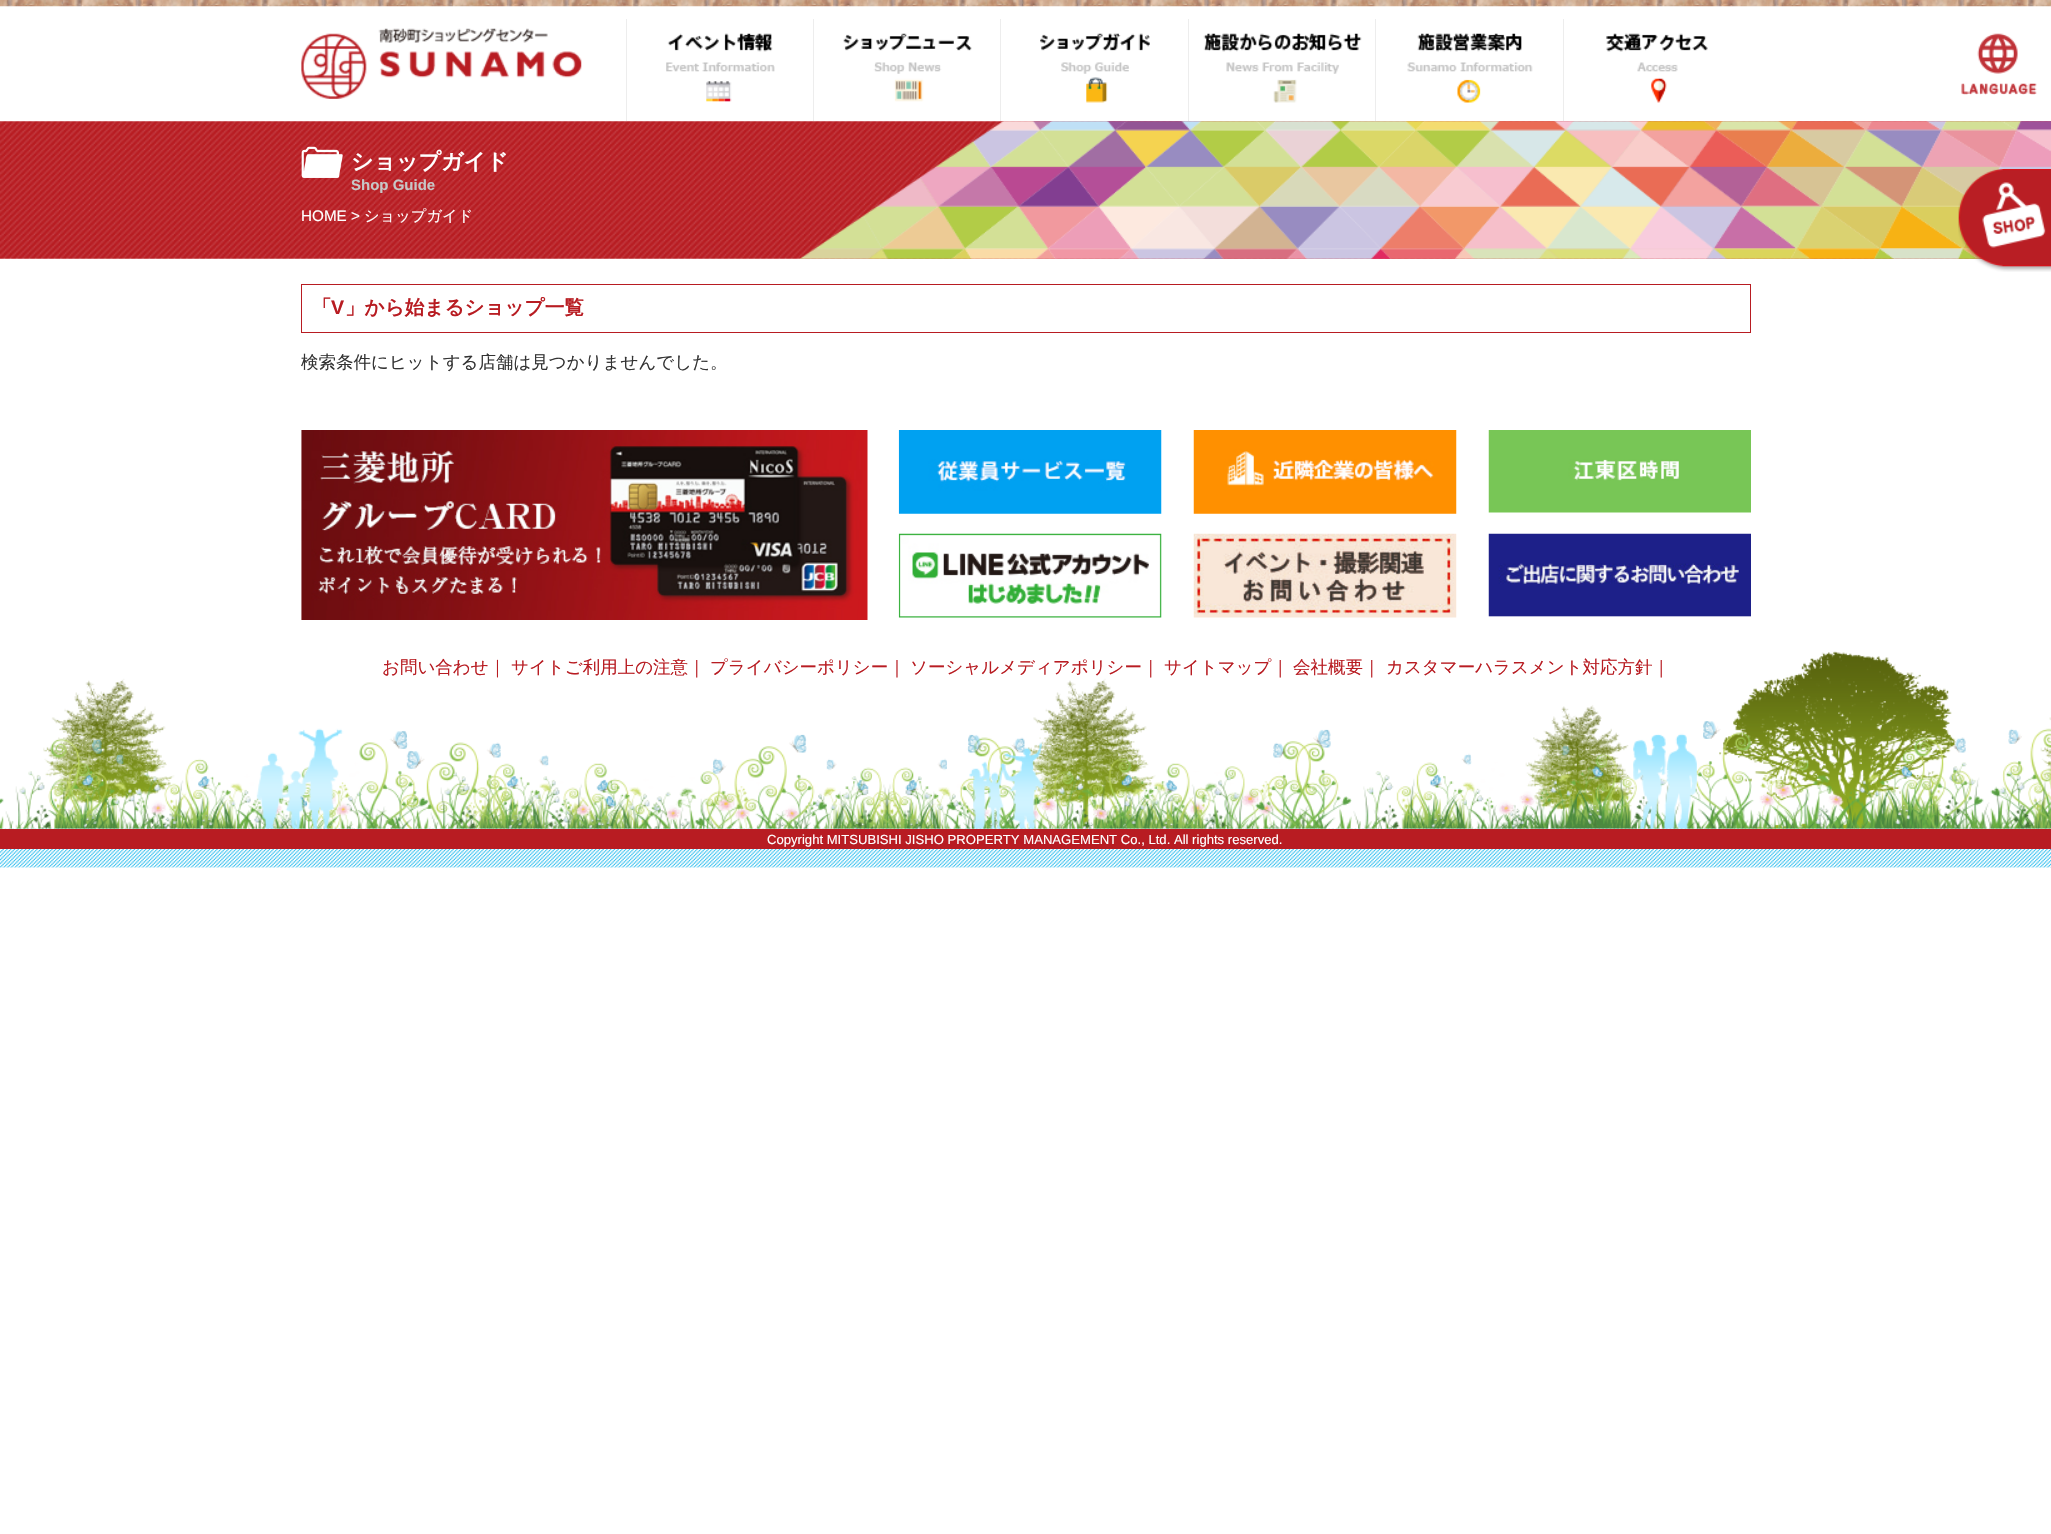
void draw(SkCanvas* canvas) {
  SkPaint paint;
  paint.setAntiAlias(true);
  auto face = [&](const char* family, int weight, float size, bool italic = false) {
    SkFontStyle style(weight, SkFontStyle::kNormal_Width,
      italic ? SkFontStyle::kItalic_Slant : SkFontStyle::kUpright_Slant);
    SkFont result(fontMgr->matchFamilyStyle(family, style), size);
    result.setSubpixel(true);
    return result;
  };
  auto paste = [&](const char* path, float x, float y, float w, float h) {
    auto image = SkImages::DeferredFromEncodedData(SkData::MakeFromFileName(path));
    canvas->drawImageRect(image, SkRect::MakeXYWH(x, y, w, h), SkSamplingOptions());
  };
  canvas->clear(0xffffffff);
  paste("img/1.png", 0, 0, 2051, 7);
  paste("img/2.png", 301, 28, 281, 71);
  paint.setColor(0xffededed);
  canvas->drawRect(SkRect::MakeXYWH(626, 19, 1, 102), paint);
  paste("img/3.png", 666, 33, 109, 69);
  canvas->drawRect(SkRect::MakeXYWH(813, 19, 1, 102), paint);
  paste("img/4.png", 843, 33, 129, 69);
  canvas->drawRect(SkRect::MakeXYWH(1000, 19, 1, 102), paint);
  paste("img/5.png", 1040, 33, 110, 70);
  canvas->drawRect(SkRect::MakeXYWH(1188, 19, 1, 102), paint);
  paste("img/6.png", 1203, 33, 159, 70);
  canvas->drawRect(SkRect::MakeXYWH(1375, 19, 1, 102), paint);
  paste("img/7.png", 1407, 33, 126, 70);
  canvas->drawRect(SkRect::MakeXYWH(1563, 19, 1, 102), paint);
  paste("img/8.png", 1606, 33, 102, 70);
  paste("img/9.png", 1961, 33, 76, 62);
  paste("img/10.png", 0, 121, 2051, 138);
  paste("img/11.png", 301, 146, 42, 32);
  paste("img/12.png", 1958, 169, 93, 103);
  paint.setStroke(true);
  paint.setStrokeWidth(1);
  paint.setColor(0xffb81c22);
  canvas->drawRect(SkRect::MakeXYWH(301.5f, 284.5f, 1449, 48), paint);
  paste("img/13.png", 0, 651, 2051, 178);
  paste("img/14.png", 301, 430, 567, 190);
  paste("img/15.png", 898, 430, 264, 84);
  paste("img/16.png", 1193, 430, 264, 84);
  paste("img/17.png", 1488, 430, 263, 83);
  paste("img/18.png", 898, 533, 264, 85);
  paste("img/19.png", 1193, 533, 264, 85);
  paste("img/20.png", 1488, 533, 263, 84);
  paste("img/21.png", 0, 828, 2051, 40);
  paint.setStroke(false);
  canvas->drawRect(SkRect::MakeXYWH(0, 829, 2051, 20), paint);
  auto f0 = face("WenQuanYi Zen Hei", 700, 22);
  paint.setColor(0xffffffff);
  canvas->drawString("ショップガイド", 351, 169, f0, paint);
  auto f1 = face("Liberation Sans", 700, 15);
  paint.setColor(0xffc7c7c7);
  canvas->drawString("Shop Guide", 351, 190, f1, paint);
  auto f2 = face("Liberation Sans", 400, 15.25f);
  paint.setColor(0xffffffff);
  canvas->drawString("HOME >", 301, 221, f2, paint);
  auto f3 = face("WenQuanYi Zen Hei", 500, 15.25f);
  canvas->drawString("ショップガイド", 364, 221, f3, paint);
  auto f4 = face("WenQuanYi Zen Hei", 700, 19.6f);
  paint.setColor(0xffb81c22);
  canvas->drawString("「", 312, 314, f4, paint);
  auto f5 = face("Liberation Sans", 700, 19.6f);
  canvas->drawString("V", 331, 314, f5, paint);
  canvas->drawString("」から始まるショップ一覧", 345, 314, f4, paint);
  auto f6 = face("WenQuanYi Zen Hei", 500, 17.5f);
  paint.setColor(0xff333333);
  canvas->drawString("検索条件にヒットする店舗は見つかりませんでした。", 301, 368, f6, paint);
  paint.setColor(0xffb81c22);
  {
    const struct { const char* s; float x, y; } items[] = {
      {"お問い合わせ｜", 382, 673},
      {"サイトご利用上の注意｜", 511, 673},
      {"プライバシーポリシー｜", 710, 673},
      {"ソーシャルメディアポリシー｜", 910, 673},
      {"サイトマップ｜", 1164, 673},
      {"会社概要｜", 1293, 673},
      {"カスタマーハラスメント対応方針｜", 1386, 673},
    };
    for (auto [s, x, y] : items) {
      canvas->drawString(s, x, y, f6, paint);
    }
  }
  auto f7 = face("Liberation Sans", 400, 13.1f);
  paint.setColor(0xffffffff);
  canvas->drawString("Copyright MITSUBISHI JISHO PROPERTY MANAGEMENT Co., Ltd. All rights reserved.", 767, 844, f7, paint);
}
